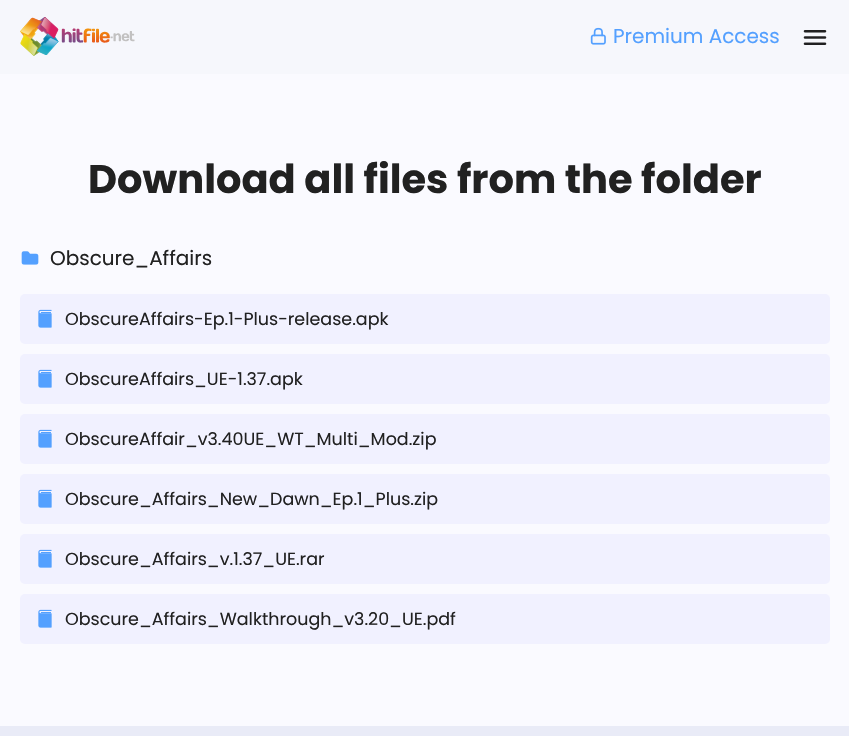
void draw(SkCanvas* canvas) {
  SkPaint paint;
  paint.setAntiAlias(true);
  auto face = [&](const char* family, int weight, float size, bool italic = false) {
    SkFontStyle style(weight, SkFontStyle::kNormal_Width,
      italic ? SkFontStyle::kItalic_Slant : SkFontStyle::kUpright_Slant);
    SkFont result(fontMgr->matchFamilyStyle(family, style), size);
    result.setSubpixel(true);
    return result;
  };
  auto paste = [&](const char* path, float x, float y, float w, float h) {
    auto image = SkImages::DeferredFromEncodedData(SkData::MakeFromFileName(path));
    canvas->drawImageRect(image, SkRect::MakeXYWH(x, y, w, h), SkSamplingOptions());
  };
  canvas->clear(0xfffafaff);
  paint.setColor(0xfff6f7fc);
  canvas->drawRect(SkRect::MakeXYWH(0, 0, 849, 74), paint);
  paste("img/1.png", 20, 17, 115, 39);
  paste("img/2.png", 590, 27, 16, 18);
  paste("img/3.png", 803, 30, 24, 15);
  paste("img/4.png", 21, 251, 18, 14);
  paint.setColor(0xfff1f1ff);
  canvas->drawRoundRect(SkRect::MakeXYWH(20, 294, 810, 50), 5, 5, paint);
  paste("img/5.png", 38, 309, 14, 19);
  canvas->drawRoundRect(SkRect::MakeXYWH(20, 354, 810, 50), 5, 5, paint);
  paste("img/5.png", 38, 369, 14, 19);
  canvas->drawRoundRect(SkRect::MakeXYWH(20, 414, 810, 50), 5, 5, paint);
  paste("img/5.png", 38, 429, 14, 19);
  canvas->drawRoundRect(SkRect::MakeXYWH(20, 474, 810, 50), 5, 5, paint);
  paste("img/5.png", 38, 489, 14, 19);
  canvas->drawRoundRect(SkRect::MakeXYWH(20, 534, 810, 50), 5, 5, paint);
  paste("img/5.png", 38, 549, 14, 19);
  canvas->drawRoundRect(SkRect::MakeXYWH(20, 594, 810, 50), 5, 5, paint);
  paste("img/5.png", 38, 609, 14, 19);
  paint.setColor(0xffe9ebf7);
  canvas->drawRect(SkRect::MakeXYWH(0, 726, 849, 10), paint);
  auto f0 = face("Poppins", 400, 20);
  paint.setColor(0xff54a0ff);
  canvas->drawString("Premium Access", 613, 43, f0, paint);
  auto f1 = face("Poppins", 700, 40);
  paint.setColor(0xff212121);
  canvas->drawString("Download all files from the folder", 88, 193, f1, paint);
  canvas->drawString("Obscure_Affairs", 50, 265, f0, paint);
  auto f2 = face("Poppins", 400, 17.5f);
  {
    const struct { const char* s; float x, y; } items[] = {
      {"ObscureAffairs-Ep.1-Plus-release.apk", 65, 325},
      {"ObscureAffairs_UE-1.37.apk", 65, 385},
      {"ObscureAffair_v3.40UE_WT_Multi_Mod.zip", 65, 445},
      {"Obscure_Affairs_New_Dawn_Ep.1_Plus.zip", 65, 505},
      {"Obscure_Affairs_v.1.37_UE.rar", 65, 565},
      {"Obscure_Affairs_Walkthrough_v3.20_UE.pdf", 65, 625},
    };
    for (auto [s, x, y] : items) {
      canvas->drawString(s, x, y, f2, paint);
    }
  }
}
